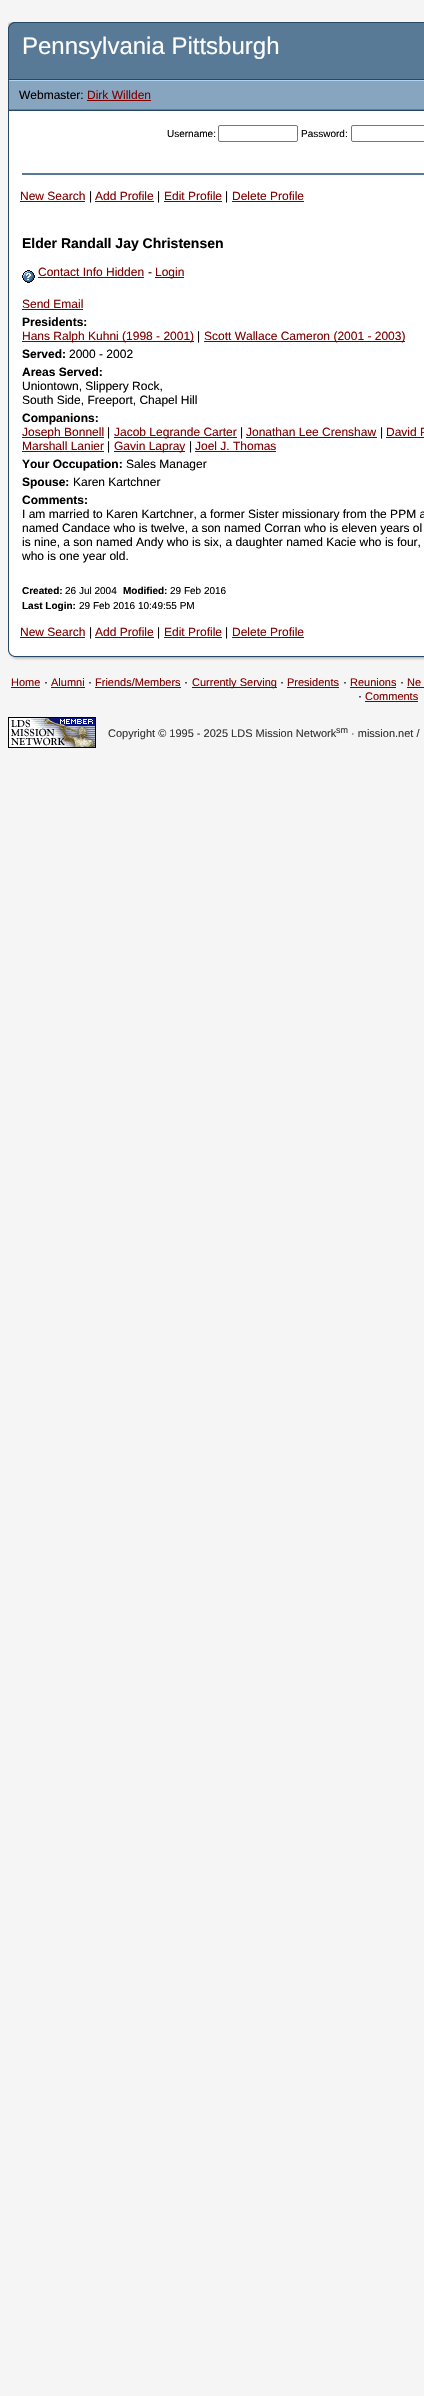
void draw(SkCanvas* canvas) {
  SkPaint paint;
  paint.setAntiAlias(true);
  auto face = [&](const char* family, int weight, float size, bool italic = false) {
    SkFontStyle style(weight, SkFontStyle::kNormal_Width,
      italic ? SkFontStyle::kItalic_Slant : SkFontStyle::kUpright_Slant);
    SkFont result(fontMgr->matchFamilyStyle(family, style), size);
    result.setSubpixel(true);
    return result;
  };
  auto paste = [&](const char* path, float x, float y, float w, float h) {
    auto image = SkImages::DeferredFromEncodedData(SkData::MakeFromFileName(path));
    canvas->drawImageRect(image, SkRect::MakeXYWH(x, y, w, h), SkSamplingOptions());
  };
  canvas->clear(0xfff5f5f5);
  paste("img/1.png", 8, 22, 416, 7);
  {
    const struct { float x, y, w, h; SkColor color; } items[] = {
      {8, 29, 1, 621, 0xff264865},
      {9, 29, 415, 50, 0xff597a96},
      {9, 79, 415, 1, 0xff264865},
      {9, 80, 415, 1, 0xffafd3f2},
      {9, 81, 415, 28, 0xff87a5bf},
      {87, 100, 64, 1, 0xff800000},
      {9, 109, 415, 1, 0xff637e95},
      {9, 110, 415, 1, 0xff264865},
      {9, 111, 415, 539, 0xffffffff},
    };
    for (auto [x, y, w, h, color] : items) {
      paint.setColor(color);
      canvas->drawRect(SkRect::MakeXYWH(x, y, w, h), paint);
    }
  }
  paint.setStroke(true);
  paint.setStrokeWidth(1);
  paint.setColor(0xff767676);
  canvas->drawRoundRect(SkRect::MakeXYWH(218.5f, 125.5f, 79, 16), 1.5f, 1.5f, paint);
  canvas->drawRoundRect(SkRect::MakeXYWH(351.5f, 125.5f, 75, 16), 1.5f, 1.5f, paint);
  paint.setStroke(false);
  {
    const struct { float x, y, w, h; SkColor color; } items[] = {
      {22, 173, 402, 2, 0xff597a96},
      {20, 201, 65, 1, 0xff800000},
      {95, 201, 59, 1, 0xff800000},
      {164, 201, 58, 1, 0xff800000},
      {232, 201, 72, 1, 0xff800000},
    };
    for (auto [x, y, w, h, color] : items) {
      paint.setColor(color);
      canvas->drawRect(SkRect::MakeXYWH(x, y, w, h), paint);
    }
  }
  paste("img/2.png", 22, 270, 13, 13);
  {
    const struct { float x, y, w, h; SkColor color; } items[] = {
      {38, 277, 106, 1, 0xff800000},
      {155, 277, 29, 1, 0xff800000},
      {22, 309, 61, 1, 0xff800000},
      {22, 341, 172, 1, 0xff800000},
      {204, 341, 201, 1, 0xff800000},
      {22, 437, 82, 1, 0xff800000},
      {114, 437, 123, 1, 0xff800000},
      {246, 437, 131, 1, 0xff800000},
      {386, 437, 38, 1, 0xff800000},
      {22, 451, 82, 1, 0xff800000},
      {114, 451, 71, 1, 0xff800000},
      {195, 451, 81, 1, 0xff800000},
      {20, 637, 65, 1, 0xff800000},
      {95, 637, 59, 1, 0xff800000},
      {164, 637, 58, 1, 0xff800000},
      {232, 637, 72, 1, 0xff800000},
    };
    for (auto [x, y, w, h, color] : items) {
      paint.setColor(color);
      canvas->drawRect(SkRect::MakeXYWH(x, y, w, h), paint);
    }
  }
  paste("img/3.png", 8, 650, 416, 11);
  {
    const struct { float x, y, w, h; SkColor color; } items[] = {
      {11, 687, 29, 1, 0xff800000},
      {51, 687, 34, 1, 0xff800000},
      {95, 687, 86, 1, 0xff800000},
      {192, 687, 85, 1, 0xff800000},
      {287, 687, 52, 1, 0xff800000},
      {350, 687, 46, 1, 0xff800000},
      {407, 687, 17, 1, 0xff800000},
      {365, 701, 53, 1, 0xff800000},
    };
    for (auto [x, y, w, h, color] : items) {
      paint.setColor(color);
      canvas->drawRect(SkRect::MakeXYWH(x, y, w, h), paint);
    }
  }
  paste("img/4.png", 8, 717, 88, 31);
  auto f0 = face("Liberation Sans", 400, 24);
  paint.setColor(0xffffffff);
  canvas->drawString("Pennsylvania Pittsburgh", 22, 54, f0, paint);
  auto f1 = face("Liberation Sans", 400, 12);
  paint.setColor(0xff000000);
  canvas->drawString("Webmaster:", 19, 99, f1, paint);
  paint.setColor(0xff800000);
  canvas->drawString("Dirk Willden", 87, 99, f1, paint);
  auto f2 = face("Liberation Sans", 400, 10);
  paint.setColor(0xff000000);
  canvas->drawString("Username:", 167, 137, f2, paint);
  canvas->drawString("Password:", 301, 137, f2, paint);
  paint.setColor(0xff800000);
  canvas->drawString("New Search", 20, 200, f1, paint);
  paint.setColor(0xff000000);
  canvas->drawString("|", 89, 200, f1, paint);
  paint.setColor(0xff800000);
  canvas->drawString("Add Profile", 95, 200, f1, paint);
  paint.setColor(0xff000000);
  canvas->drawString("|", 157, 200, f1, paint);
  paint.setColor(0xff800000);
  canvas->drawString("Edit Profile", 164, 200, f1, paint);
  paint.setColor(0xff000000);
  canvas->drawString("|", 225, 200, f1, paint);
  paint.setColor(0xff800000);
  canvas->drawString("Delete Profile", 232, 200, f1, paint);
  auto f3 = face("Liberation Sans", 700, 14);
  paint.setColor(0xff000000);
  canvas->drawString("Elder Randall Jay Christensen", 22, 248, f3, paint);
  paint.setColor(0xff800000);
  canvas->drawString("Contact Info Hidden", 38, 276, f1, paint);
  paint.setColor(0xff000000);
  canvas->drawString("-", 148, 276, f1, paint);
  paint.setColor(0xff800000);
  canvas->drawString("Login", 155, 276, f1, paint);
  canvas->drawString("Send Email", 22, 308, f1, paint);
  auto f4 = face("Liberation Sans", 700, 12);
  paint.setColor(0xff000000);
  canvas->drawString("Presidents:", 22, 326, f4, paint);
  paint.setColor(0xff800000);
  canvas->drawString("Hans Ralph Kuhni (1998 - 2001)", 22, 340, f1, paint);
  paint.setColor(0xff000000);
  canvas->drawString("|", 197, 340, f1, paint);
  paint.setColor(0xff800000);
  canvas->drawString("Scott Wallace Cameron (2001 - 2003)", 204, 340, f1, paint);
  paint.setColor(0xff000000);
  canvas->drawString("Served:", 22, 358, f4, paint);
  canvas->drawString("2000 - 2002", 69, 358, f1, paint);
  canvas->drawString("Areas Served:", 22, 376, f4, paint);
  canvas->drawString("Uniontown, Slippery Rock,", 22, 390, f1, paint);
  canvas->drawString("South Side, Freeport, Chapel Hill", 22, 404, f1, paint);
  canvas->drawString("Companions:", 22, 422, f4, paint);
  paint.setColor(0xff800000);
  canvas->drawString("Joseph Bonnell", 22, 436, f1, paint);
  paint.setColor(0xff000000);
  canvas->drawString("|", 107, 436, f1, paint);
  paint.setColor(0xff800000);
  canvas->drawString("Jacob Legrande Carter", 114, 436, f1, paint);
  paint.setColor(0xff000000);
  canvas->drawString("|", 240, 436, f1, paint);
  paint.setColor(0xff800000);
  canvas->drawString("Jonathan Lee Crenshaw", 246, 436, f1, paint);
  paint.setColor(0xff000000);
  canvas->drawString("|", 380, 436, f1, paint);
  paint.setColor(0xff800000);
  canvas->drawString("David P", 386, 436, f1, paint);
  canvas->drawString("Marshall Lanier", 22, 450, f1, paint);
  paint.setColor(0xff000000);
  canvas->drawString("|", 107, 450, f1, paint);
  paint.setColor(0xff800000);
  canvas->drawString("Gavin Lapray", 114, 450, f1, paint);
  paint.setColor(0xff000000);
  canvas->drawString("|", 189, 450, f1, paint);
  paint.setColor(0xff800000);
  canvas->drawString("Joel J. Thomas", 195, 450, f1, paint);
  paint.setColor(0xff000000);
  canvas->drawString("Your Occupation:", 22, 468, f4, paint);
  canvas->drawString("Sales Manager", 126, 468, f1, paint);
  canvas->drawString("Spouse:", 22, 486, f4, paint);
  canvas->drawString("Karen Kartchner", 73, 486, f1, paint);
  canvas->drawString("Comments:", 22, 504, f4, paint);
  {
    const struct { const char* s; float x, y; } items[] = {
      {"I am married to Karen Kartchner, a former Sister missionary from the PPM a", 22, 518},
      {"named Candace who is twelve, a son named Corran who is eleven years ol", 22, 532},
      {"is nine, a son named Andy who is six, a daughter named Kacie who is four,", 22, 546},
      {"who is one year old.", 22, 560},
    };
    for (auto [s, x, y] : items) {
      canvas->drawString(s, x, y, f1, paint);
    }
  }
  auto f5 = face("Liberation Sans", 700, 10);
  canvas->drawString("Created:", 22, 594, f5, paint);
  canvas->drawString("26 Jul 2004", 65, 594, f2, paint);
  canvas->drawString("Modified:", 123, 594, f5, paint);
  canvas->drawString("29 Feb 2016", 170, 594, f2, paint);
  canvas->drawString("Last Login:", 22, 609, f5, paint);
  canvas->drawString("29 Feb 2016 10:49:55 PM", 79, 609, f2, paint);
  paint.setColor(0xff800000);
  canvas->drawString("New Search", 20, 636, f1, paint);
  paint.setColor(0xff000000);
  canvas->drawString("|", 89, 636, f1, paint);
  paint.setColor(0xff800000);
  canvas->drawString("Add Profile", 95, 636, f1, paint);
  paint.setColor(0xff000000);
  canvas->drawString("|", 157, 636, f1, paint);
  paint.setColor(0xff800000);
  canvas->drawString("Edit Profile", 164, 636, f1, paint);
  paint.setColor(0xff000000);
  canvas->drawString("|", 225, 636, f1, paint);
  paint.setColor(0xff800000);
  canvas->drawString("Delete Profile", 232, 636, f1, paint);
  auto f6 = face("Liberation Sans", 400, 11);
  canvas->drawString("Home", 11, 686, f6, paint);
  paint.setColor(0xff000000);
  canvas->drawString("·", 44, 686, f1, paint);
  paint.setColor(0xff800000);
  canvas->drawString("Alumni", 51, 686, f6, paint);
  paint.setColor(0xff000000);
  canvas->drawString("·", 88, 686, f1, paint);
  paint.setColor(0xff800000);
  canvas->drawString("Friends/Members", 95, 686, f6, paint);
  paint.setColor(0xff000000);
  canvas->drawString("·", 184, 686, f1, paint);
  paint.setColor(0xff800000);
  canvas->drawString("Currently Serving", 192, 686, f6, paint);
  paint.setColor(0xff000000);
  canvas->drawString("·", 280, 686, f1, paint);
  paint.setColor(0xff800000);
  canvas->drawString("Presidents", 287, 686, f6, paint);
  paint.setColor(0xff000000);
  canvas->drawString("·", 343, 686, f1, paint);
  paint.setColor(0xff800000);
  canvas->drawString("Reunions", 350, 686, f6, paint);
  paint.setColor(0xff000000);
  canvas->drawString("·", 400, 686, f1, paint);
  paint.setColor(0xff800000);
  canvas->drawString("Ne", 407, 686, f6, paint);
  paint.setColor(0xff000000);
  canvas->drawString("·", 358, 700, f1, paint);
  paint.setColor(0xff800000);
  canvas->drawString("Comments", 365, 700, f6, paint);
  paint.setColor(0xff333333);
  canvas->drawString("Copyright © 1995 - 2025 LDS Mission Network", 108, 737, f6, paint);
  auto f7 = face("Liberation Sans", 400, 9);
  canvas->drawString("sm", 336, 733, f7, paint);
  canvas->drawString("· mission.net /", 351, 737, f6, paint);
}
